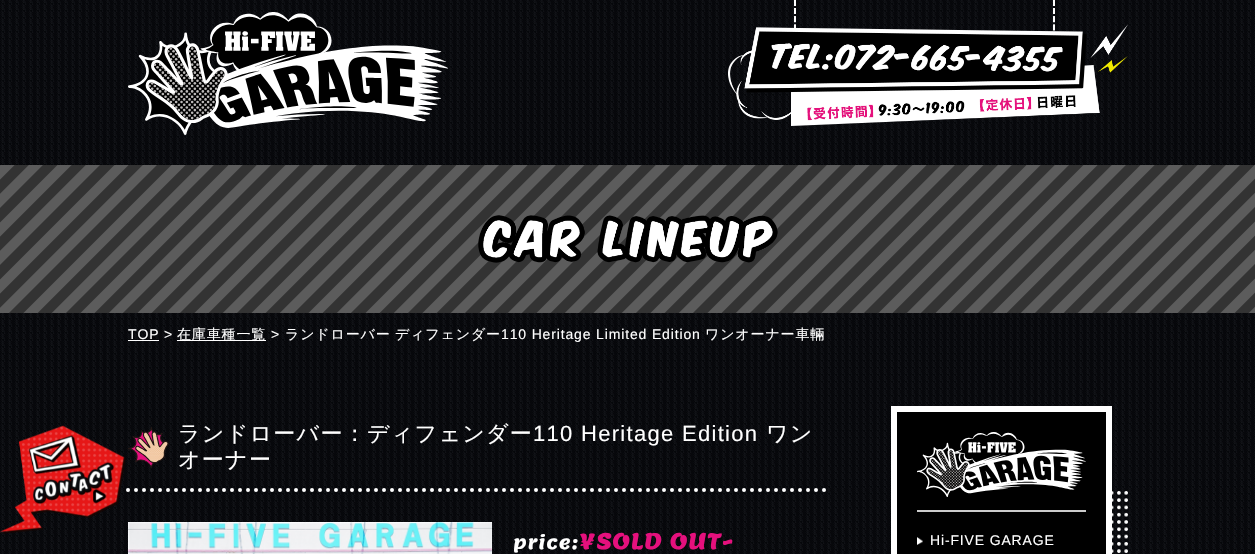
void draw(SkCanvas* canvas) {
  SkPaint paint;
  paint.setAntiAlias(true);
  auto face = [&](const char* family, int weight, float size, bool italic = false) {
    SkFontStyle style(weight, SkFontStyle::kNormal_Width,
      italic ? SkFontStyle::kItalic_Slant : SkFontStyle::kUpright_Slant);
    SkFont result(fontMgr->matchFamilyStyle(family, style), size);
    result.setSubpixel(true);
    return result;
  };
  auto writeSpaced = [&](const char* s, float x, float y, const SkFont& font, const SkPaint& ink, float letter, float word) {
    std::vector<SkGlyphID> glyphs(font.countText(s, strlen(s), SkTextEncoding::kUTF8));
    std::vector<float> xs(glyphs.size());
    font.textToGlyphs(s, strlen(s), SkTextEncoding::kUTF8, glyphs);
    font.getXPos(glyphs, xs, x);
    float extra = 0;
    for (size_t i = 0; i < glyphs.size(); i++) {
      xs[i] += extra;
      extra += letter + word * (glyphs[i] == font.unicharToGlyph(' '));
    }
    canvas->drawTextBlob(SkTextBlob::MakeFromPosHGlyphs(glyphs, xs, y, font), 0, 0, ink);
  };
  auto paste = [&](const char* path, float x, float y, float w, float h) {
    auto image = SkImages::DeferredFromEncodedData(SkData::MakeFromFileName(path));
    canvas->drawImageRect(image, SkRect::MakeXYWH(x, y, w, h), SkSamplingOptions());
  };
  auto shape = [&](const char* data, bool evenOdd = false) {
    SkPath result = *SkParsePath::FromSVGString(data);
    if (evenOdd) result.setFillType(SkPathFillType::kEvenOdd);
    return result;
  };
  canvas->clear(0xffffffff);
  paste("img/1.png", 0, 0, 1255, 554);
  paste("img/2.png", 0, 425, 126, 109);
  paste("img/3.png", 128, 12, 320, 123);
  paste("img/4.png", 728, 0, 400, 126);
  paste("img/5.png", 0, 165, 1255, 148);
  paste("img/6.png", 478, 215, 300, 48);
  paint.setColor(0xffffffff);
  canvas->drawRect(SkRect::MakeXYWH(128, 340, 31, 1), paint);
  canvas->drawRect(SkRect::MakeXYWH(177, 340, 89, 1), paint);
  paste("img/7.png", 128, 427, 41, 41);
  paint.setStroke(true);
  paint.setStrokeWidth(4);
  paint.setStrokeCap(SkPaint::kRound_Cap);
  paint.setPathEffect(SkDashPathEffect::Make({{0, 8}}, 0));
  canvas->drawPath(shape("M128 490H828"), paint);
  paint.setPathEffect(nullptr);
  paste("img/8.png", 128, 522, 364, 32);
  paste("img/9.png", 1112, 491, 16, 62);
  paint.setStroke(false);
  paint.setColor(0xff000000);
  canvas->drawRect(SkRect::MakeXYWH(894, 409, 215, 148), paint);
  paint.setStroke(true);
  paint.setStrokeWidth(6);
  paint.setStrokeCap(SkPaint::kButt_Cap);
  paint.setColor(0xffffffff);
  canvas->drawRect(SkRect::MakeXYWH(894, 409, 215, 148), paint);
  paint.setStroke(false);
  paint.setColor(0xffcccccc);
  canvas->drawRect(SkRect::MakeXYWH(917, 510, 169, 2), paint);
  paste("img/10.png", 917, 432, 169, 65);
  paste("img/11.png", 917, 537, 6, 8);
  auto f0 = face("Liberation Sans", 400, 14);
  paint.setColor(0xffffffff);
  writeSpaced("TOP >", 128, 339, f0, paint, 0.85f, 0);
  auto f1 = face("WenQuanYi Zen Hei", 500, 14);
  writeSpaced("在庫車種一覧", 177, 339, f1, paint, 0.85f, 0);
  writeSpaced(">", 271, 339, f0, paint, 0.85f, 0);
  writeSpaced("ランドローバー", 285, 339, f1, paint, 0.85f, 0);
  writeSpaced("ディフェンダー", 395, 339, f1, paint, 0.85f, 0);
  writeSpaced("110 Heritage Limited Edition", 501, 339, f0, paint, 0.85f, 0);
  writeSpaced("ワンオーナー車輛", 705, 339, f1, paint, 0.85f, 0);
  auto f2 = face("WenQuanYi Zen Hei", 500, 22);
  writeSpaced("ランドローバー：ディフェンダー", 178, 441, f2, paint, 1.3f, 0);
  auto f3 = face("Liberation Sans", 400, 22);
  writeSpaced("110 Heritage Edition", 533, 441, f3, paint, 1.3f, 0);
  writeSpaced("ワン", 766, 441, f2, paint, 1.3f, 0);
  writeSpaced("オーナー", 178, 467, f2, paint, 1.3f, 0);
  auto f4 = face("Lemon", 400, 18);
  writeSpaced("price:", 513, 549, f4, paint, 1, 0);
  auto f5 = face("Lemon", 400, 22.25f);
  paint.setColor(0xffe5107d);
  writeSpaced("¥SOLD OUT-", 579, 549, f5, paint, 1, 0);
  paint.setColor(0xffffffff);
  writeSpaced("Hi-FIVE GARAGE", 930, 545, f0, paint, 0.85f, 0);
}
